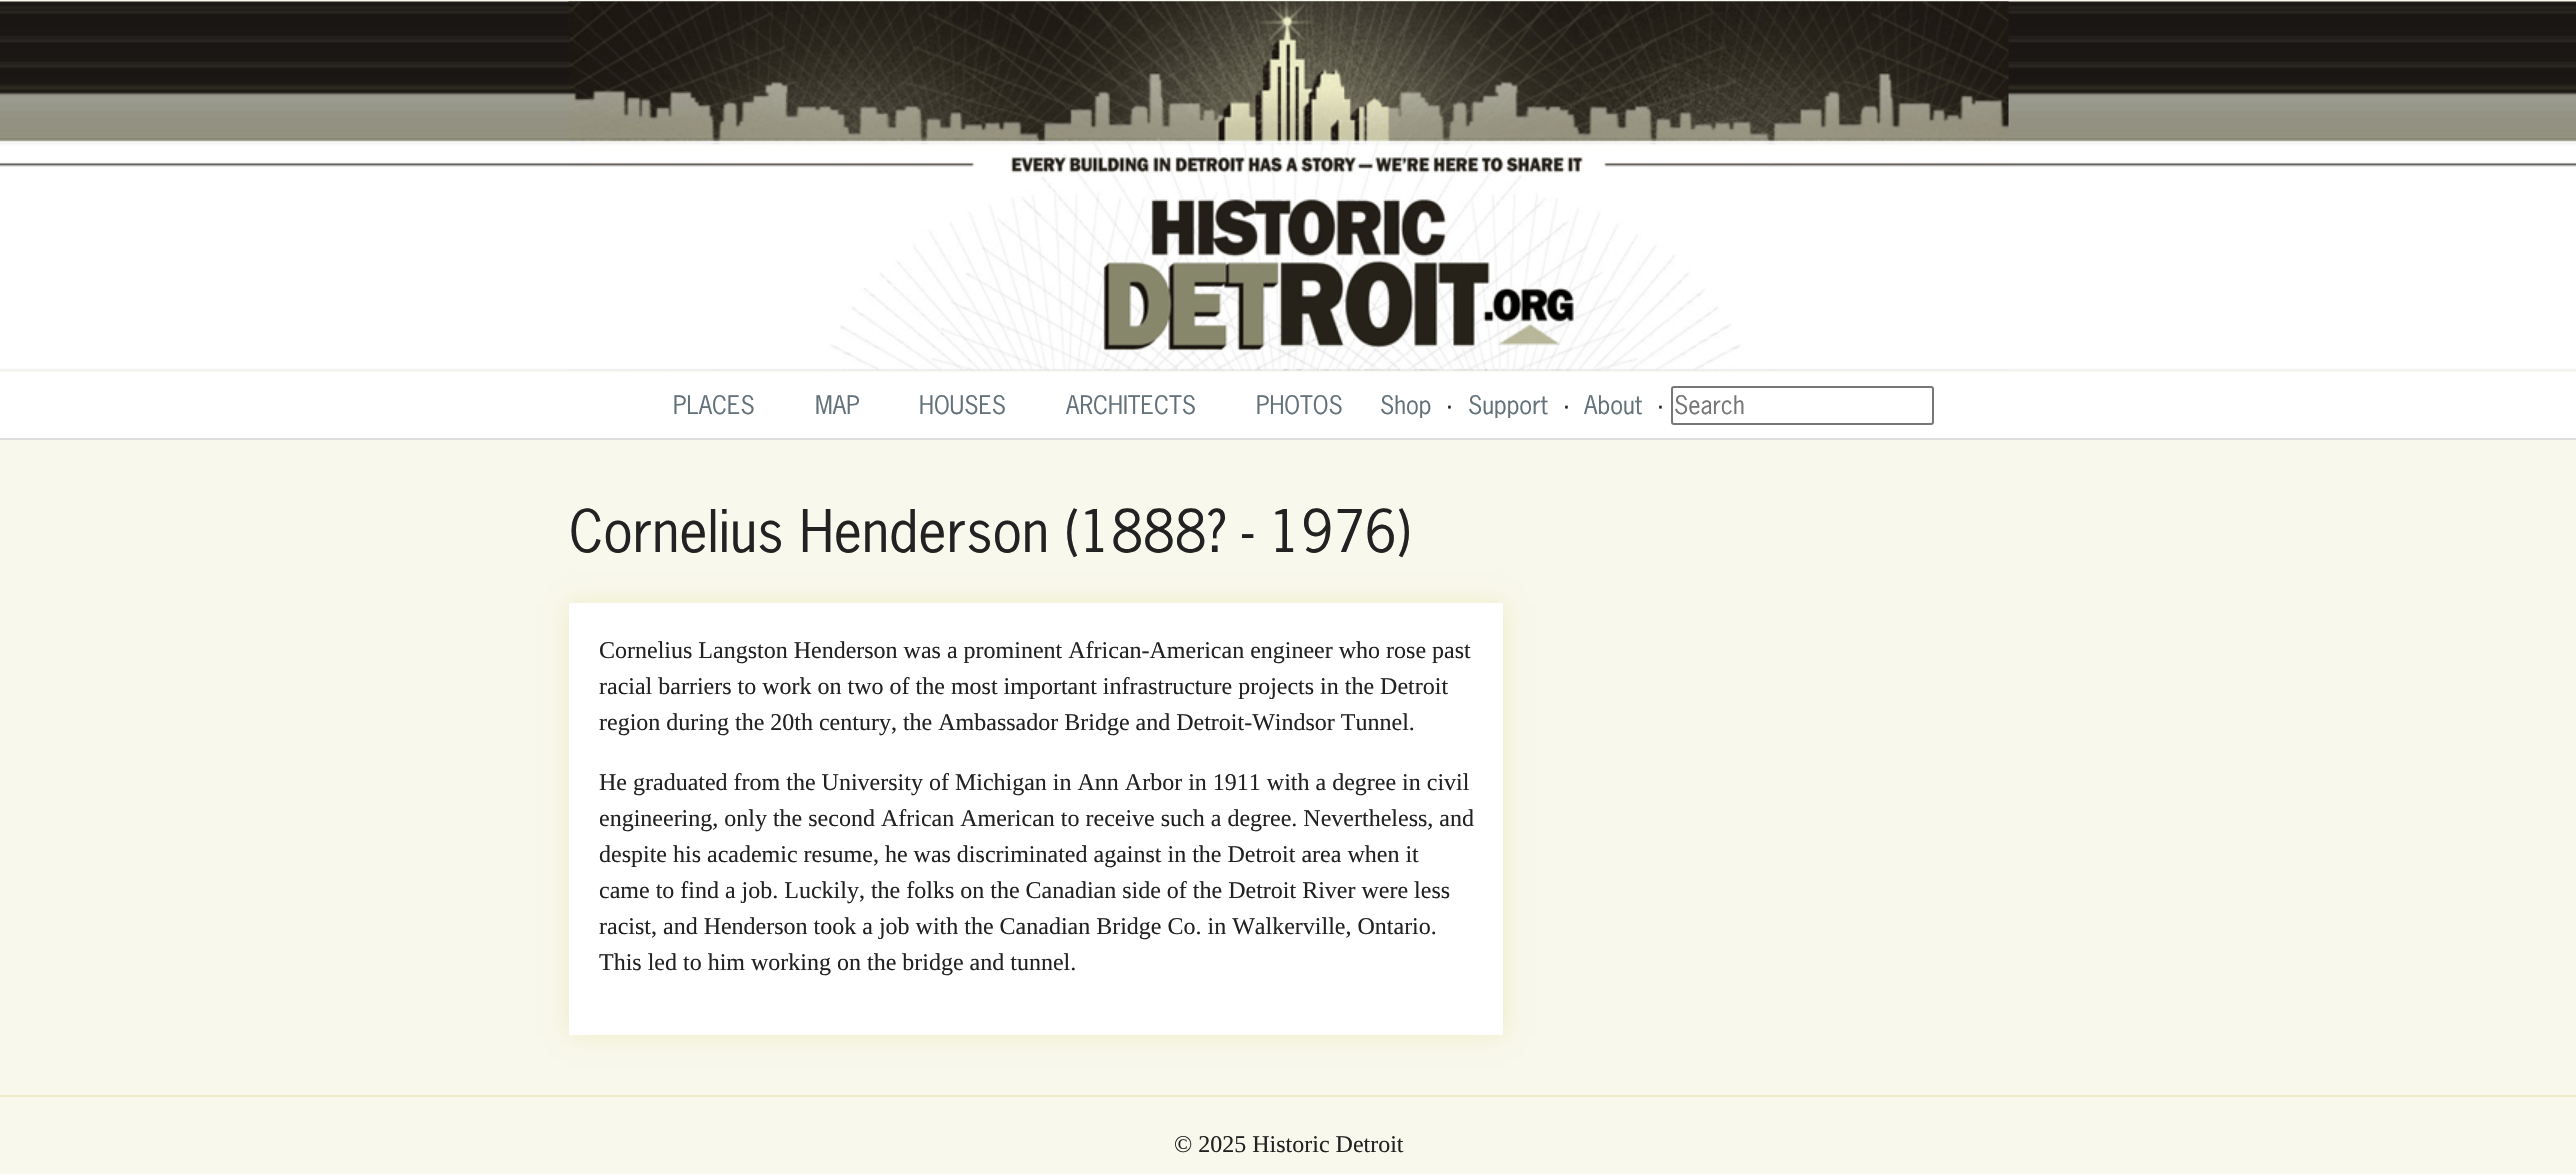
void draw(SkCanvas* canvas) {
  SkPaint paint;
  paint.setAntiAlias(true);
  auto face = [&](const char* family, int weight, float size, bool italic = false) {
    SkFontStyle style(weight, SkFontStyle::kNormal_Width,
      italic ? SkFontStyle::kItalic_Slant : SkFontStyle::kUpright_Slant);
    SkFont result(fontMgr->matchFamilyStyle(family, style), size);
    result.setSubpixel(true);
    return result;
  };
  auto paste = [&](const char* path, float x, float y, float w, float h) {
    auto image = SkImages::DeferredFromEncodedData(SkData::MakeFromFileName(path));
    canvas->drawImageRect(image, SkRect::MakeXYWH(x, y, w, h), SkSamplingOptions());
  };
  canvas->clear(0xfff9f8ec);
  paste("img/1.png", 0, 1, 2576, 370);
  paste("img/2.png", 568, 1, 1441, 370);
  paint.setColor(0xffffffff);
  canvas->drawRect(SkRect::MakeXYWH(0, 372, 2576, 66), paint);
  paint.setColor(0xffdddddd);
  canvas->drawRect(SkRect::MakeXYWH(0, 438, 2576, 2), paint);
  paint.setStroke(true);
  paint.setStrokeWidth(2);
  paint.setColor(0xff767676);
  canvas->drawRoundRect(SkRect::MakeXYWH(1672, 387, 261, 37), 2, 2, paint);
  paint.setStroke(false);
  paint.setColor(0xffedebc4);
  canvas->drawRect(SkRect::MakeXYWH(0, 1095, 2576, 2), paint);
  paint.setMaskFilter(SkMaskFilter::MakeBlur(kNormal_SkBlurStyle, 11));
  canvas->drawRect(SkRect::MakeXYWH(569, 603, 934, 432), paint);
  paint.setMaskFilter(nullptr);
  paint.setColor(0xffffffff);
  canvas->drawRect(SkRect::MakeXYWH(569, 603, 934, 432), paint);
  auto f0 = face("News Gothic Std", 400, 24);
  paint.setColor(0xff637179);
  {
    const struct { const char* s; float x, y; } items[] = {
      {"PLACES", 673, 414},
      {"MAP", 815, 414},
      {"HOUSES", 919, 414},
      {"ARCHITECTS", 1066, 414},
      {"PHOTOS", 1256, 414},
      {"Shop", 1380, 414},
    };
    for (auto [s, x, y] : items) {
      canvas->drawString(s, x, y, f0, paint);
    }
  }
  paint.setColor(0xff222222);
  canvas->drawString("·", 1446, 414, f0, paint);
  paint.setColor(0xff637179);
  canvas->drawString("Support", 1468, 414, f0, paint);
  paint.setColor(0xff222222);
  canvas->drawString("·", 1563, 414, f0, paint);
  paint.setColor(0xff637179);
  canvas->drawString("About", 1584, 414, f0, paint);
  paint.setColor(0xff222222);
  canvas->drawString("·", 1657, 414, f0, paint);
  paint.setColor(0xff757575);
  canvas->drawString("Search", 1674, 414, f0, paint);
  auto f1 = face("News Gothic Std", 400, 55.25f);
  paint.setColor(0xff222222);
  canvas->drawString("Cornelius Henderson (1888? - 1976)", 569, 552, f1, paint);
  auto f2 = face("Liberation Serif", 400, 24);
  {
    const struct { const char* s; float x, y; } items[] = {
      {"Cornelius Langston Henderson was a prominent African-American engineer who rose past", 599, 658},
      {"racial barriers to work on two of the most important infrastructure projects in the Detroit", 599, 694},
      {"region during the 20th century, the Ambassador Bridge and Detroit-Windsor Tunnel.", 599, 730},
      {"He graduated from the University of Michigan in Ann Arbor in 1911 with a degree in civil", 599, 790},
      {"engineering, only the second African American to receive such a degree. Nevertheless, and", 599, 826},
      {"despite his academic resume, he was discriminated against in the Detroit area when it", 599, 862},
      {"came to find a job. Luckily, the folks on the Canadian side of the Detroit River were less", 599, 898},
      {"racist, and Henderson took a job with the Canadian Bridge Co. in Walkerville, Ontario.", 599, 934},
      {"This led to him working on the bridge and tunnel.", 599, 970},
      {"© 2025 Historic Detroit", 1174, 1152},
    };
    for (auto [s, x, y] : items) {
      canvas->drawString(s, x, y, f2, paint);
    }
  }
}
